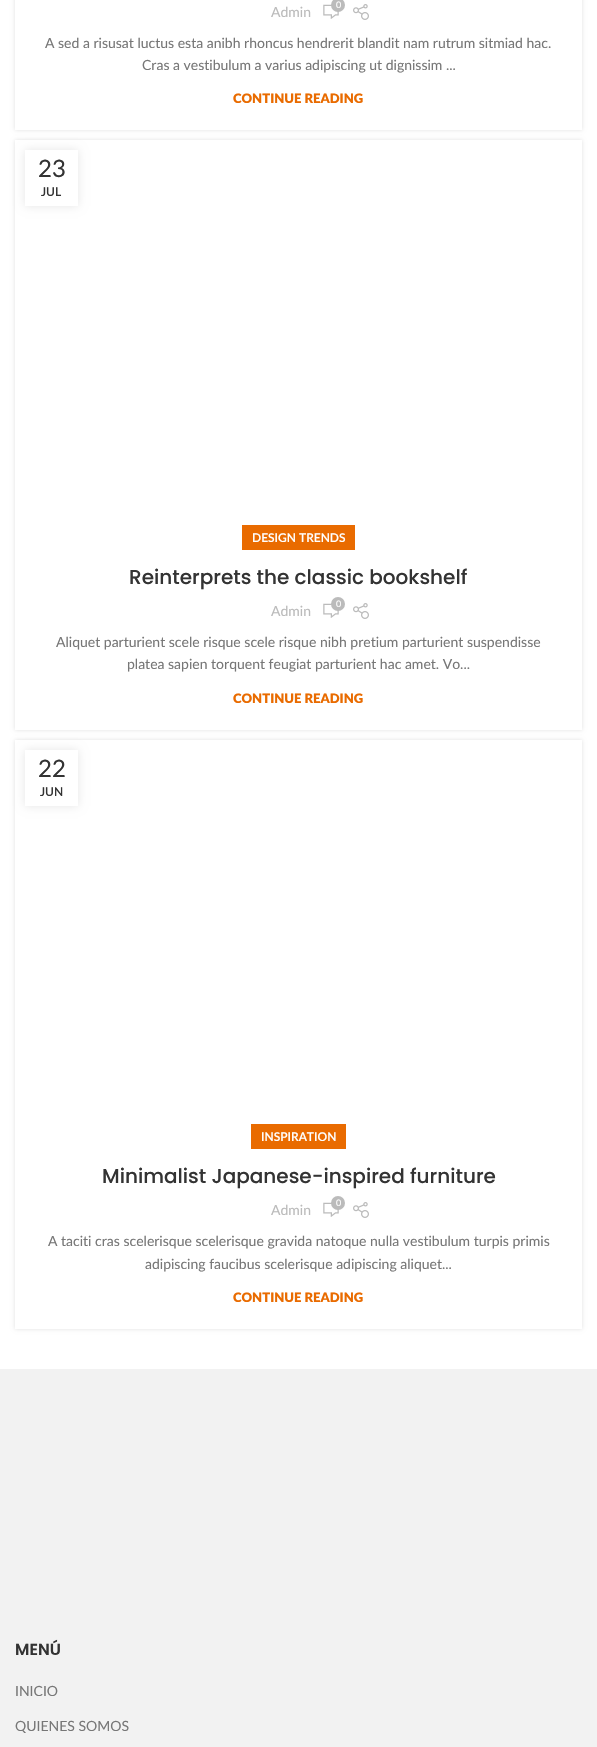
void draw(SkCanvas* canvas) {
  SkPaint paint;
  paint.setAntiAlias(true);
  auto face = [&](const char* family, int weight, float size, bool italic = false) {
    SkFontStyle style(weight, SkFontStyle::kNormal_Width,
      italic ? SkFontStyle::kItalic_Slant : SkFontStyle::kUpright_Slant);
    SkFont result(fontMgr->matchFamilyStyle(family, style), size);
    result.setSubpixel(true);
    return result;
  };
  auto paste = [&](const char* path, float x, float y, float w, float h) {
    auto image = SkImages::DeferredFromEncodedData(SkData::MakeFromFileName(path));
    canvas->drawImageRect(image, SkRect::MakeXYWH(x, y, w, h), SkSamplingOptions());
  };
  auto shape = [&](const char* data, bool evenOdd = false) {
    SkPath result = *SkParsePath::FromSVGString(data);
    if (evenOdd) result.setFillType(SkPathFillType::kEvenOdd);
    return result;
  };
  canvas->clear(0xffffffff);
  canvas->save();
  canvas->clipPath(shape("M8 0H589V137H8ZM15-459H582V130H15Z", true), true);
  paint.setColor(0x1f000000);
  paint.setMaskFilter(SkMaskFilter::MakeBlur(kNormal_SkBlurStyle, 2));
  canvas->drawRect(SkRect::MakeXYWH(15, -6, 567, 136), paint);
  paint.setMaskFilter(nullptr);
  canvas->restore();
  paste("img/1.png", 323, 4, 16, 15);
  paint.setColor(0xffbbbbbb);
  canvas->drawCircle(338, 5, 7, paint);
  paste("img/2.png", 353, 4, 16, 16);
  canvas->save();
  canvas->clipPath(shape("M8 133H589V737H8ZM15 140H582V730H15Z", true), true);
  paint.setColor(0x1f000000);
  paint.setMaskFilter(SkMaskFilter::MakeBlur(kNormal_SkBlurStyle, 2));
  canvas->drawRect(SkRect::MakeXYWH(15, 140, 567, 590), paint);
  paint.setMaskFilter(nullptr);
  canvas->restore();
  canvas->save();
  canvas->clipPath(shape("M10 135H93V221H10ZM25 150H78V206H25Z", true), true);
  paint.setColor(0x1a000000);
  paint.setMaskFilter(SkMaskFilter::MakeBlur(kNormal_SkBlurStyle, 4.5f));
  canvas->drawRect(SkRect::MakeXYWH(25, 150, 53, 56), paint);
  paint.setMaskFilter(nullptr);
  canvas->restore();
  paint.setColor(0xffe96b00);
  canvas->drawRect(SkRect::MakeXYWH(242, 525, 113, 25), paint);
  paste("img/1.png", 323, 603, 16, 15);
  paint.setColor(0xffbbbbbb);
  canvas->drawCircle(338, 604, 7, paint);
  paste("img/2.png", 353, 603, 16, 16);
  canvas->save();
  canvas->clipPath(shape("M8 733H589V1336H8ZM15 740H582V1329H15Z", true), true);
  paint.setColor(0x1f000000);
  paint.setMaskFilter(SkMaskFilter::MakeBlur(kNormal_SkBlurStyle, 2));
  canvas->drawRect(SkRect::MakeXYWH(15, 740, 567, 589), paint);
  paint.setMaskFilter(nullptr);
  canvas->restore();
  canvas->save();
  canvas->clipPath(shape("M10 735H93V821H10ZM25 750H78V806H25Z", true), true);
  paint.setColor(0x1a000000);
  paint.setMaskFilter(SkMaskFilter::MakeBlur(kNormal_SkBlurStyle, 4.5f));
  canvas->drawRect(SkRect::MakeXYWH(25, 750, 53, 56), paint);
  paint.setMaskFilter(nullptr);
  canvas->restore();
  paint.setColor(0xffe96b00);
  canvas->drawRect(SkRect::MakeXYWH(251, 1124, 95, 25), paint);
  paste("img/1.png", 323, 1202, 16, 15);
  paint.setColor(0xffbbbbbb);
  canvas->drawCircle(338, 1203, 7, paint);
  paste("img/2.png", 353, 1202, 16, 16);
  paint.setColor(0xfff2f2f2);
  canvas->drawRect(SkRect::MakeXYWH(0, 1369, 597, 378), paint);
  auto f0 = face("Lato", 400, 9);
  paint.setColor(0xffffffff);
  canvas->drawString("0", 336, 8, f0, paint);
  auto f1 = face("Lato", 400, 14);
  paint.setColor(0xffbbbbbb);
  canvas->drawString("Admin", 271, 17, f1, paint);
  paint.setColor(0xff777777);
  canvas->drawString("A sed a risusat luctus esta anibh rhoncus hendrerit blandit nam rutrum sitmiad hac.", 45, 48, f1, paint);
  canvas->drawString("Cras a vestibulum a varius adipiscing ut dignissim ...", 142, 70, f1, paint);
  auto f2 = face("Lato", 800, 13);
  paint.setColor(0xffe96b00);
  canvas->drawString("CONTINUE READING", 233, 103, f2, paint);
  auto f3 = face("Lato", 400, 24);
  paint.setColor(0xff333333);
  canvas->drawString("23", 38, 177, f3, paint);
  auto f4 = face("Lato", 600, 12);
  canvas->drawString("JUL", 41, 196, f4, paint);
  paint.setColor(0xffffffff);
  canvas->drawString("DESIGN TRENDS", 252, 542, f4, paint);
  auto f5 = face("Poppins", 500, 20);
  paint.setColor(0xff333333);
  canvas->drawString("Reinterprets the classic bookshelf", 129, 584, f5, paint);
  paint.setColor(0xffffffff);
  canvas->drawString("0", 336, 607, f0, paint);
  paint.setColor(0xffbbbbbb);
  canvas->drawString("Admin", 271, 616, f1, paint);
  paint.setColor(0xff777777);
  canvas->drawString("Aliquet parturient scele risque scele risque nibh pretium parturient suspendisse", 56, 647, f1, paint);
  canvas->drawString("platea sapien torquent feugiat parturient hac amet. Vo...", 127, 669, f1, paint);
  paint.setColor(0xffe96b00);
  canvas->drawString("CONTINUE READING", 233, 703, f2, paint);
  paint.setColor(0xff333333);
  canvas->drawString("22", 38, 777, f3, paint);
  canvas->drawString("JUN", 40, 796, f4, paint);
  paint.setColor(0xffffffff);
  canvas->drawString("INSPIRATION", 261, 1141, f4, paint);
  paint.setColor(0xff333333);
  canvas->drawString("Minimalist Japanese-inspired furniture", 102, 1183, f5, paint);
  paint.setColor(0xffffffff);
  canvas->drawString("0", 336, 1206, f0, paint);
  paint.setColor(0xffbbbbbb);
  canvas->drawString("Admin", 271, 1215, f1, paint);
  paint.setColor(0xff777777);
  canvas->drawString("A taciti cras scelerisque scelerisque gravida natoque nulla vestibulum turpis primis", 48, 1246, f1, paint);
  canvas->drawString("adipiscing faucibus scelerisque adipiscing aliquet...", 145, 1269, f1, paint);
  paint.setColor(0xffe96b00);
  canvas->drawString("CONTINUE READING", 233, 1302, f2, paint);
  auto f6 = face("Poppins", 600, 16);
  paint.setColor(0xff333333);
  canvas->drawString("MENÚ", 15, 1655, f6, paint);
  paint.setColor(0xff777777);
  canvas->drawString("INICIO", 15, 1696, f1, paint);
  canvas->drawString("QUIENES SOMOS", 15, 1731, f1, paint);
}
